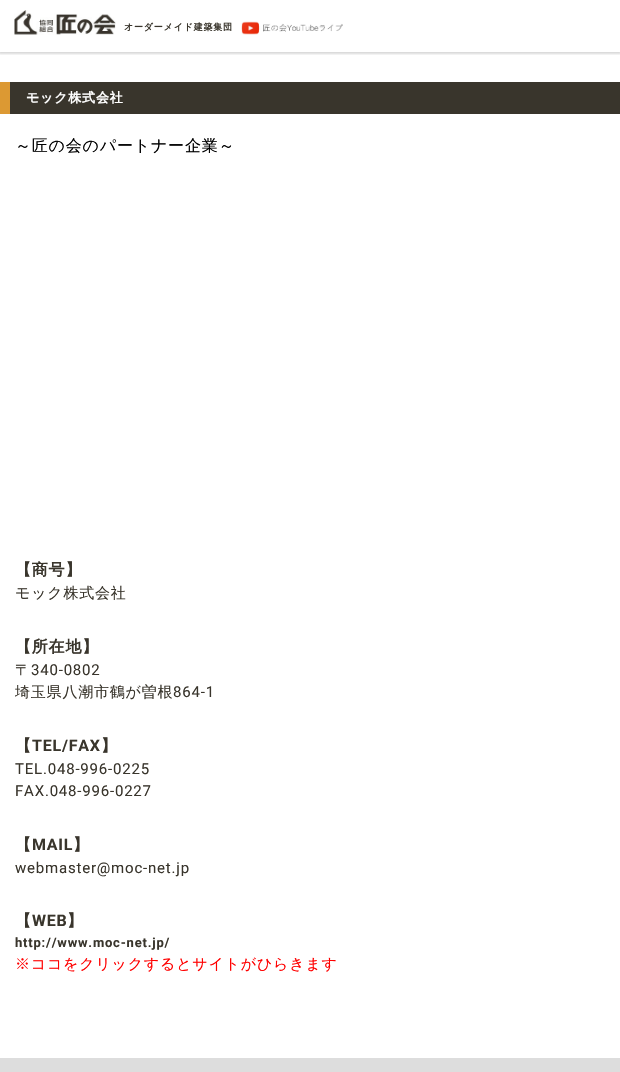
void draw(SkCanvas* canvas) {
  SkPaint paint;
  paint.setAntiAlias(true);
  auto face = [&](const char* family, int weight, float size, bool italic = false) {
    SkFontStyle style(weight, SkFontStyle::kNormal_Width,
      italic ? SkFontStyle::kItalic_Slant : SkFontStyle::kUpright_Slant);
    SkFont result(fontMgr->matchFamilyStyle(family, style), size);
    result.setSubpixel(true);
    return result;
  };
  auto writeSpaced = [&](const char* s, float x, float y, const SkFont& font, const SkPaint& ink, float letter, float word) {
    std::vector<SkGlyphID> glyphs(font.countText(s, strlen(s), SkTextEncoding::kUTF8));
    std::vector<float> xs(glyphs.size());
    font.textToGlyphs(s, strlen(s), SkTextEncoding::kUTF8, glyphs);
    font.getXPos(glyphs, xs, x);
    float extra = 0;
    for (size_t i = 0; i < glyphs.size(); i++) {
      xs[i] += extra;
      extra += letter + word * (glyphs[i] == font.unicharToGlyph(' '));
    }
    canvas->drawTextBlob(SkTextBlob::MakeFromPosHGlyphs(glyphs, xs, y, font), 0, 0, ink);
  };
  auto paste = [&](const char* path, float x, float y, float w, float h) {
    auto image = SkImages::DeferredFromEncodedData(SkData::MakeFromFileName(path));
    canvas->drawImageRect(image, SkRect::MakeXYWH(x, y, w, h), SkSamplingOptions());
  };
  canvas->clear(0xffffffff);
  canvas->save();
  canvas->clipRect(SkRect::MakeXYWH(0, 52, 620, 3));
  paint.setColor(0x26000000);
  paint.setMaskFilter(SkMaskFilter::MakeBlur(kNormal_SkBlurStyle, 1));
  canvas->drawRect(SkRect::MakeXYWH(-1, 0, 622, 54), paint);
  paint.setMaskFilter(nullptr);
  canvas->restore();
  paste("img/1.png", 14, 10, 102, 25);
  paste("img/2.png", 241, 21, 102, 14);
  {
    const struct { float x, y, w, h; SkColor color; } items[] = {
      {10, 82, 610, 32, 0xff39352c},
      {0, 82, 10, 32, 0xffdc9933},
      {0, 1058, 620, 14, 0xffdddddd},
    };
    for (auto [x, y, w, h, color] : items) {
      paint.setColor(color);
      canvas->drawRect(SkRect::MakeXYWH(x, y, w, h), paint);
    }
  }
  auto f0 = face("WenQuanYi Zen Hei", 700, 9);
  paint.setColor(0xff39352c);
  writeSpaced("オーダーメイド建築集団", 124, 30, f0, paint, 0.8f, 0);
  auto f1 = face("WenQuanYi Zen Hei", 700, 13);
  paint.setColor(0xffffffff);
  writeSpaced("モック株式会社", 26, 102, f1, paint, 0.8f, 0);
  auto f2 = face("WenQuanYi Zen Hei", 500, 16);
  paint.setColor(0xff000000);
  writeSpaced("～匠の会のパートナー企業～", 15, 151, f2, paint, 0.8f, 0);
  auto f3 = face("WenQuanYi Zen Hei", 700, 16);
  paint.setColor(0xff39352c);
  writeSpaced("【商号】", 15, 575, f3, paint, 0.8f, 0);
  auto f4 = face("WenQuanYi Zen Hei", 500, 15);
  writeSpaced("モック株式会社", 15, 598, f4, paint, 0.8f, 0);
  writeSpaced("【所在地】", 15, 652, f3, paint, 0.8f, 0);
  writeSpaced("〒", 15, 675, f4, paint, 0.8f, 0);
  auto f5 = face("Roboto", 400, 15);
  writeSpaced("340-0802", 31, 675, f5, paint, 0.8f, 0);
  writeSpaced("埼玉県八潮市鶴が曽根", 15, 697, f4, paint, 0.8f, 0);
  writeSpaced("864-1", 173, 697, f5, paint, 0.8f, 0);
  writeSpaced("【", 15, 751, f3, paint, 0.8f, 0);
  auto f6 = face("Roboto", 700, 16);
  writeSpaced("TEL/FAX", 32, 751, f6, paint, 0.8f, 0);
  writeSpaced("】", 101, 751, f3, paint, 0.8f, 0);
  writeSpaced("TEL.048-996-0225", 15, 774, f5, paint, 0.8f, 0);
  writeSpaced("FAX.048-996-0227", 15, 796, f5, paint, 0.8f, 0);
  writeSpaced("【", 15, 850, f3, paint, 0.8f, 0);
  writeSpaced("MAIL", 32, 850, f6, paint, 0.8f, 0);
  writeSpaced("】", 73, 850, f3, paint, 0.8f, 0);
  writeSpaced("webmaster@moc-net.jp", 15, 873, f5, paint, 0.8f, 0);
  writeSpaced("【", 15, 926, f3, paint, 0.8f, 0);
  writeSpaced("WEB", 32, 926, f6, paint, 0.8f, 0);
  writeSpaced("】", 67, 926, f3, paint, 0.8f, 0);
  auto f7 = face("Roboto", 700, 13);
  writeSpaced("http://www.moc-net.jp/", 15, 947, f7, paint, 0.8f, 0);
  paint.setColor(0xffff0000);
  writeSpaced("※ココをクリックするとサイトがひらきます", 15, 969, f4, paint, 0.8f, 0);
}
